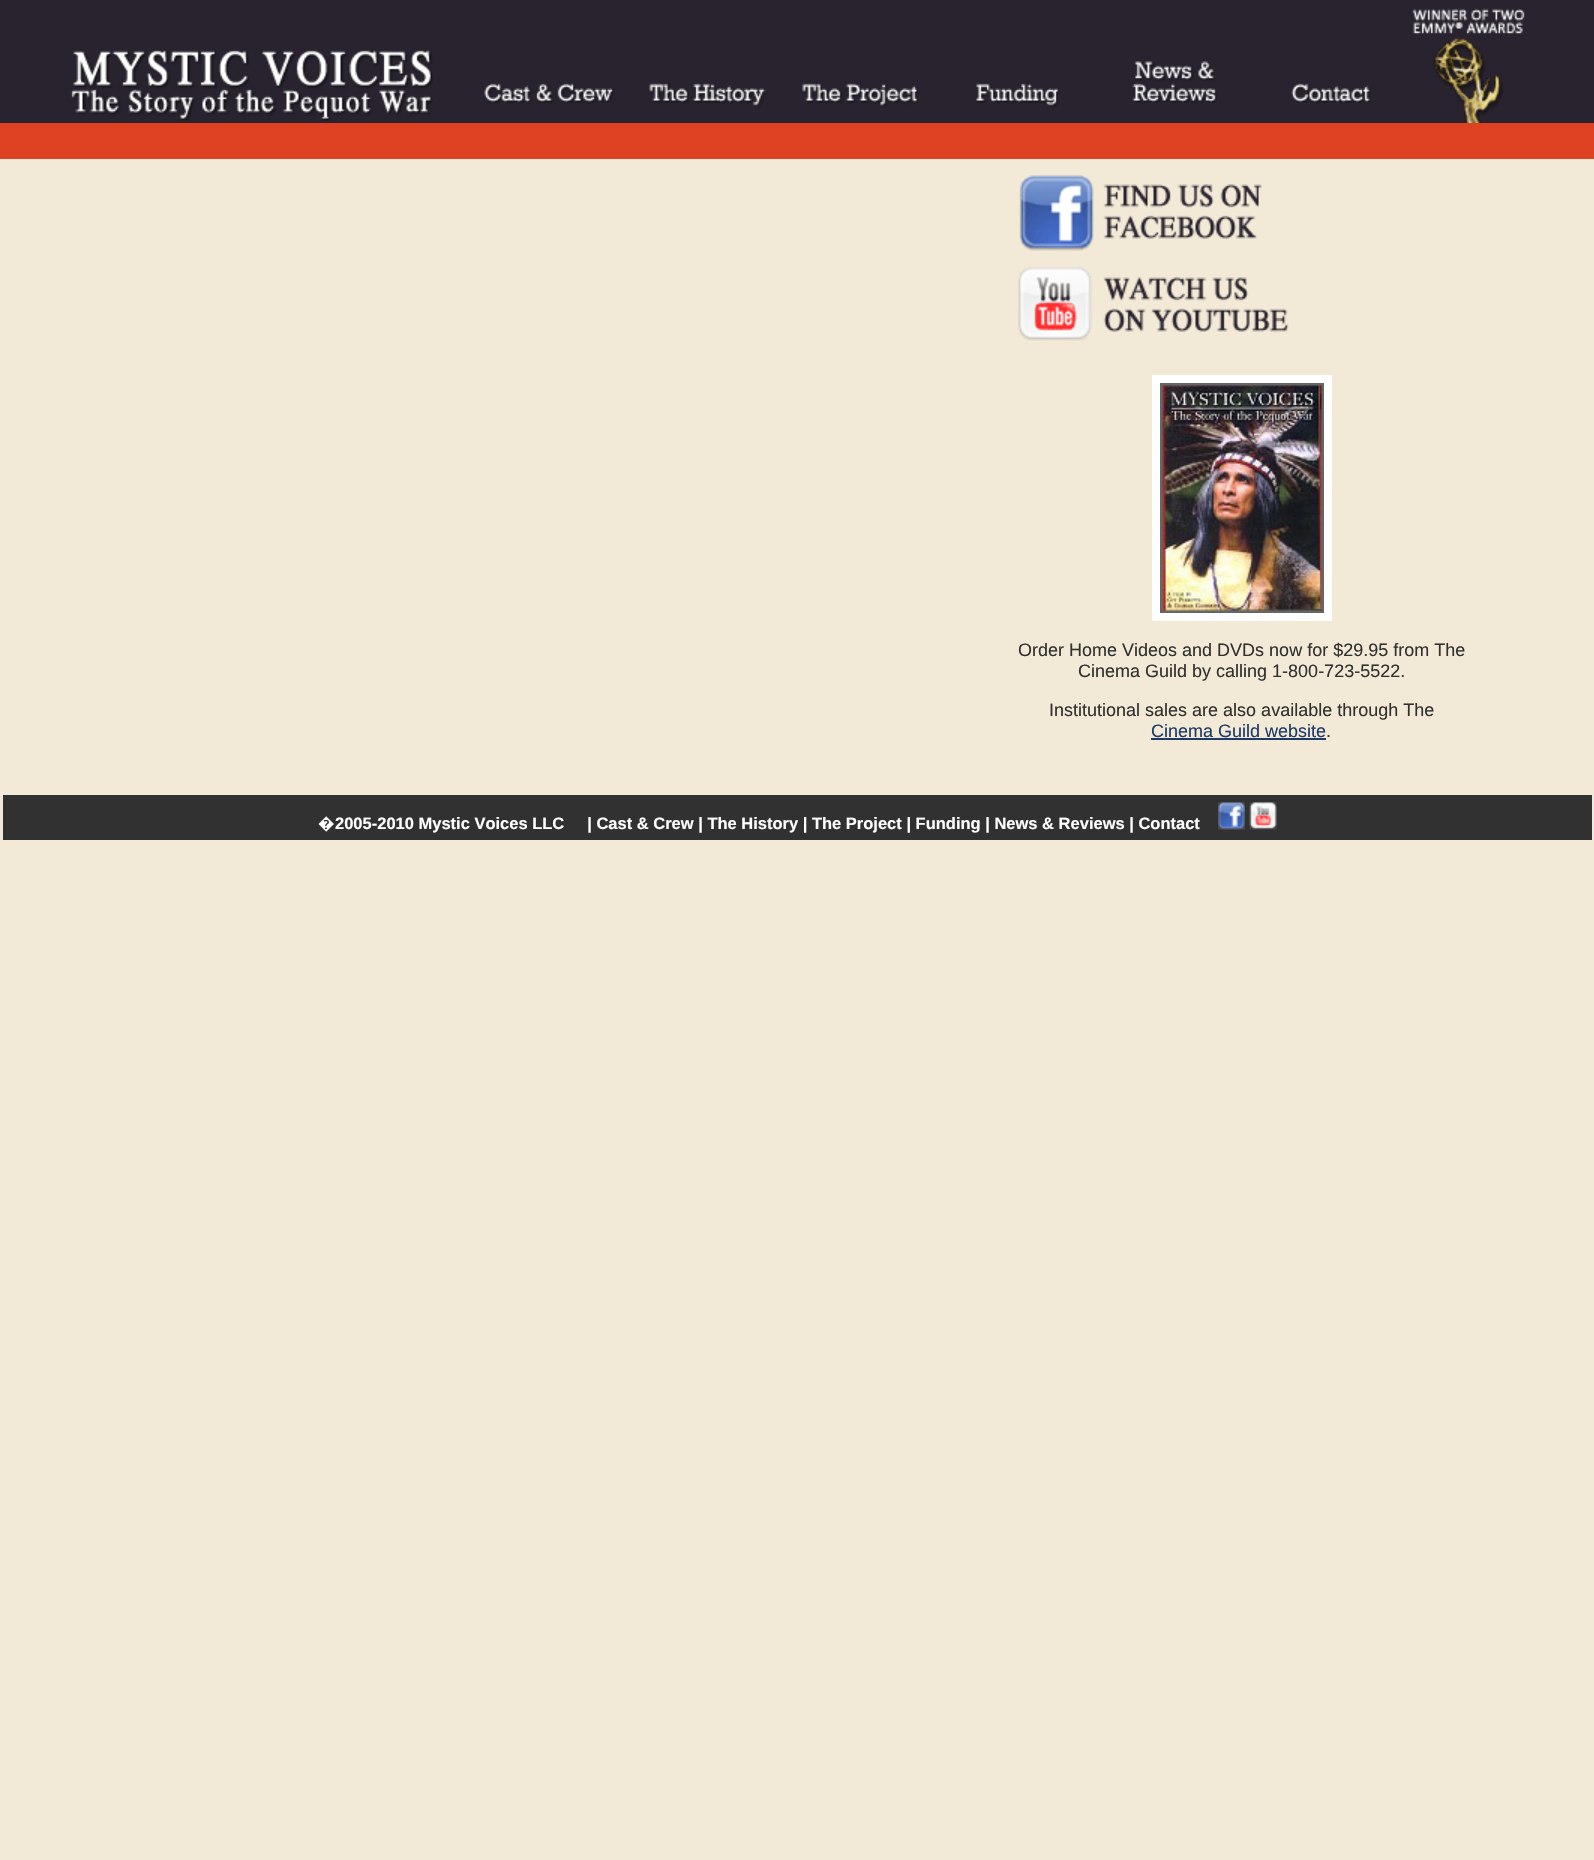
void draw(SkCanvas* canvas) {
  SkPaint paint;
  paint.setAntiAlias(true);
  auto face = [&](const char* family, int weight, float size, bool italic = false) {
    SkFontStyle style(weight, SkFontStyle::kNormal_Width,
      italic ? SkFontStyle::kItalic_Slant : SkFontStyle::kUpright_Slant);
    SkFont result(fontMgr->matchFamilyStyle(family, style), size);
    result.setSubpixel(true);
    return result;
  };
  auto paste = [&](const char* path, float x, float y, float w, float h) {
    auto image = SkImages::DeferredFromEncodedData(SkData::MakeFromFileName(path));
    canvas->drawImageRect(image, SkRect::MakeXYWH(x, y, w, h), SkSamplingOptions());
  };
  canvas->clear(0xfff2ead7);
  paint.setColor(0xff28232e);
  canvas->drawRect(SkRect::MakeXYWH(0, 0, 1594, 123), paint);
  paste("img/1.png", 71, 50, 362, 71);
  paste("img/2.png", 484, 83, 130, 21);
  paste("img/3.png", 649, 83, 117, 24);
  paste("img/4.png", 802, 83, 116, 24);
  paste("img/5.png", 976, 83, 84, 24);
  paste("img/6.png", 1132, 61, 85, 42);
  paste("img/7.png", 1291, 83, 80, 20);
  paste("img/8.png", 1412, 8, 113, 115);
  paint.setColor(0xffdf4223);
  canvas->drawRect(SkRect::MakeXYWH(0, 123, 1594, 36), paint);
  paste("img/9.png", 1019, 175, 243, 76);
  paste("img/10.png", 1018, 267, 271, 74);
  paint.setColor(0xff666666);
  canvas->drawRect(SkRect::MakeXYWH(1156, 379, 172, 238), paint);
  paint.setStroke(true);
  paint.setStrokeWidth(8);
  paint.setColor(0xffffffff);
  canvas->drawRect(SkRect::MakeXYWH(1156, 379, 172, 238), paint);
  paste("img/11.png", 1162, 385, 160, 226);
  paint.setStroke(false);
  paint.setColor(0xff1e3b67);
  canvas->drawRect(SkRect::MakeXYWH(1151, 738, 175, 2), paint);
  paint.setColor(0xff313131);
  canvas->drawRect(SkRect::MakeXYWH(3, 795, 1589, 45), paint);
  paste("img/12.png", 1218, 802, 27, 28);
  paste("img/13.png", 1249, 802, 28, 28);
  auto f0 = face("Liberation Sans", 400, 18);
  {
    const struct { const char* s; float x, y; } items[] = {
      {"Order Home Videos and DVDs now for $29.95 from The", 1018, 656},
      {"Cinema Guild by calling 1-800-723-5522.", 1078, 677},
      {"Institutional sales are also available through The", 1049, 716},
    };
    for (auto [s, x, y] : items) {
      canvas->drawString(s, x, y, f0, paint);
    }
  }
  paint.setColor(0xff1e3b67);
  canvas->drawString("Cinema Guild website", 1151, 737, f0, paint);
  paint.setColor(0xff313131);
  canvas->drawString(".", 1326, 737, f0, paint);
  auto f1 = face("Noto Sans", 700, 16.5f);
  paint.setColor(0xffffffff);
  canvas->drawString("�", 318, 829, f1, paint);
  auto f2 = face("Liberation Sans", 700, 16.5f);
  canvas->drawString("2005-2010 Mystic Voices LLC     | Cast & Crew | The History | The Project | Funding | News & Reviews | Contact", 335, 829, f2, paint);
}
